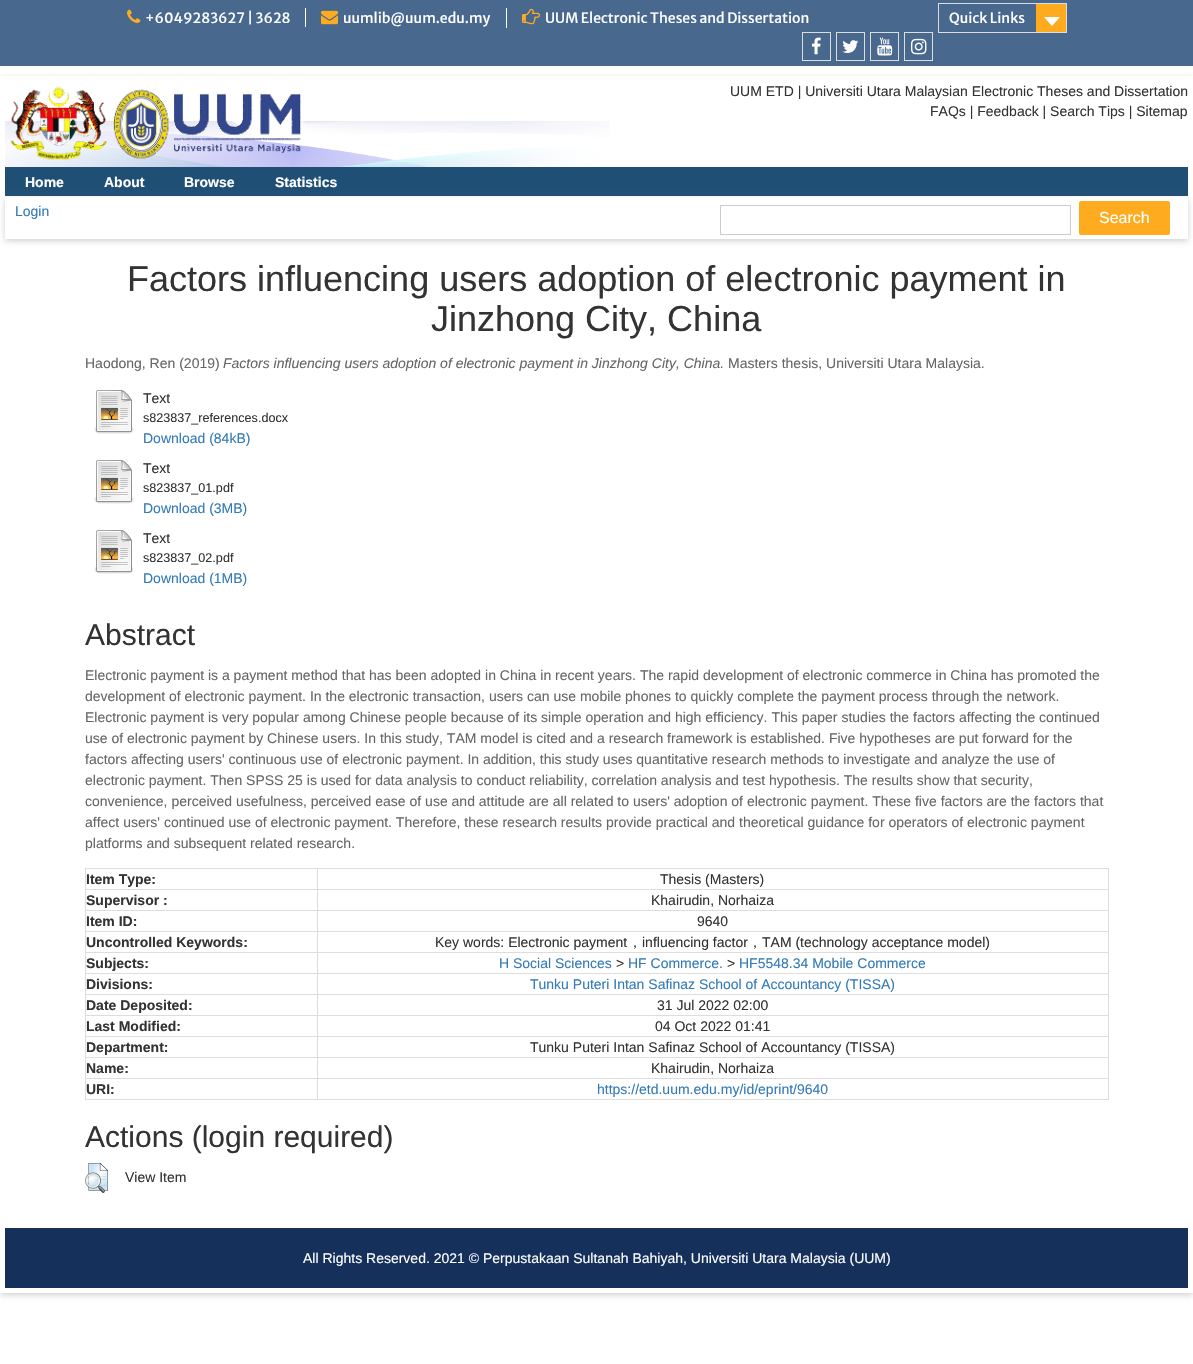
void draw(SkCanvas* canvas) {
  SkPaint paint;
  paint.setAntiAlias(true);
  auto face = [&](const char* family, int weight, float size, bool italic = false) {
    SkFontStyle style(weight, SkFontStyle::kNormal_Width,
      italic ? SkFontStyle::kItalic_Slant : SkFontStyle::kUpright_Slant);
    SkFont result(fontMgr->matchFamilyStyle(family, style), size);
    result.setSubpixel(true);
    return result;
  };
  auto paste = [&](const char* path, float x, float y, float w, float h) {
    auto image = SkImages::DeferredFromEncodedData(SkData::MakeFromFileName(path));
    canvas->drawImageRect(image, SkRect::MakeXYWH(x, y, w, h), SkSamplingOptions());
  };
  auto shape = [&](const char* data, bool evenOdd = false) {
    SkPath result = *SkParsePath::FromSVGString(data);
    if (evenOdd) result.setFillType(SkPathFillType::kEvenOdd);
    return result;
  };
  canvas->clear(0xffffffff);
  paint.setColor(0xff49688e);
  canvas->drawRect(SkRect::MakeXYWH(0, 0, 1193, 66), paint);
  paste("img/1.png", 127, 9, 14, 14);
  paint.setColor(0xffffffff);
  canvas->drawRect(SkRect::MakeXYWH(305, 8, 1, 19), paint);
  paste("img/2.png", 321, 10, 17, 15);
  canvas->drawRect(SkRect::MakeXYWH(506, 8, 1, 20), paint);
  paste("img/3.png", 522, 8, 18, 17);
  paint.setStroke(true);
  paint.setStrokeWidth(1);
  paint.setColor(0xffdddddd);
  canvas->drawRect(SkRect::MakeXYWH(938.5f, 3.5f, 128, 29), paint);
  paint.setStroke(false);
  paint.setColor(0xffffab1f);
  canvas->drawRect(SkRect::MakeXYWH(1036, 4, 30, 28), paint);
  paint.setColor(0xffffffff);
  canvas->drawPath(shape("M1044 17H1060L1052 26Z"), paint);
  paint.setStroke(true);
  paint.setColor(0xffdddddd);
  canvas->drawRect(SkRect::MakeXYWH(802.5f, 32.5f, 28, 28), paint);
  paste("img/4.png", 811, 37, 10, 18);
  canvas->drawRect(SkRect::MakeXYWH(836.5f, 32.5f, 28, 28), paint);
  paste("img/5.png", 842, 40, 17, 13);
  canvas->drawRect(SkRect::MakeXYWH(870.5f, 32.5f, 28, 28), paint);
  paste("img/6.png", 877, 37, 16, 19);
  canvas->drawRect(SkRect::MakeXYWH(904.5f, 32.5f, 28, 28), paint);
  paste("img/7.png", 911, 38, 16, 17);
  canvas->save();
  canvas->clipPath(shape("M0 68H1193V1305H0ZM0 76H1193V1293H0Z", true), true);
  paint.setStroke(false);
  paint.setColor(0x4d646464);
  paint.setMaskFilter(SkMaskFilter::MakeBlur(kNormal_SkBlurStyle, 3));
  canvas->drawRect(SkRect::MakeXYWH(0, 78, 1193, 1217), paint);
  paint.setMaskFilter(nullptr);
  canvas->restore();
  paste("img/9.png", 5, 121, 605, 46);
  paste("img/8.png", 10, 86, 292, 74);
  paint.setColor(0xff204f76);
  canvas->drawRect(SkRect::MakeXYWH(5, 167, 1183, 29), paint);
  paint.setColor(0x4d646464);
  paint.setMaskFilter(SkMaskFilter::MakeBlur(kNormal_SkBlurStyle, 3));
  canvas->drawRect(SkRect::MakeXYWH(5, 199, 1183, 42), paint);
  paint.setMaskFilter(nullptr);
  paint.setColor(0xffffffff);
  canvas->drawRect(SkRect::MakeXYWH(5, 197, 1183, 42), paint);
  paint.setStroke(true);
  paint.setColor(0xffcccccc);
  canvas->drawRect(SkRect::MakeXYWH(720.5f, 205.5f, 350, 29), paint);
  paint.setStroke(false);
  paint.setColor(0xffffab1f);
  canvas->drawRoundRect(SkRect::MakeXYWH(1079, 201, 91, 34), 2, 2, paint);
  paste("img/10.png", 94, 390, 40, 44);
  paste("img/10.png", 94, 460, 40, 44);
  paste("img/10.png", 94, 530, 40, 44);
  {
    const struct { float x, y, w, h; SkColor color; } items[] = {
      {317, 868, 792, 1, 0xffdddddd},
      {317, 889, 792, 1, 0xffdddddd},
      {317, 910, 792, 1, 0xffdddddd},
      {317, 931, 792, 1, 0xffdddddd},
      {317, 952, 792, 1, 0xffdddddd},
      {317, 973, 792, 1, 0xffdddddd},
      {317, 994, 792, 1, 0xffdddddd},
      {317, 1015, 792, 1, 0xffdddddd},
      {317, 1036, 792, 1, 0xffdddddd},
      {317, 1057, 792, 1, 0xffdddddd},
      {317, 1078, 792, 1, 0xffdddddd},
      {1108, 1078, 1, 22, 0xffdddddd},
      {317, 1099, 792, 1, 0xffdddddd},
      {317, 1078, 1, 22, 0xffdddddd},
      {85, 1078, 233, 1, 0xffdddddd},
      {317, 1057, 1, 22, 0xffdddddd},
      {85, 1057, 233, 1, 0xffdddddd},
      {317, 1036, 1, 22, 0xffdddddd},
      {85, 1036, 233, 1, 0xffdddddd},
      {317, 1015, 1, 22, 0xffdddddd},
      {85, 1015, 233, 1, 0xffdddddd},
      {317, 994, 1, 22, 0xffdddddd},
      {85, 994, 233, 1, 0xffdddddd},
      {317, 973, 1, 22, 0xffdddddd},
      {85, 973, 233, 1, 0xffdddddd},
      {317, 952, 1, 22, 0xffdddddd},
      {85, 952, 233, 1, 0xffdddddd},
      {317, 931, 1, 22, 0xffdddddd},
      {85, 931, 233, 1, 0xffdddddd},
      {317, 910, 1, 22, 0xffdddddd},
      {85, 910, 233, 1, 0xffdddddd},
      {317, 889, 1, 22, 0xffdddddd},
      {85, 889, 233, 1, 0xffdddddd},
      {317, 868, 1, 22, 0xffdddddd},
      {85, 868, 233, 1, 0xffdddddd},
      {85, 1099, 233, 1, 0xffdddddd},
      {85, 1078, 1, 22, 0xffdddddd},
      {85, 1057, 1, 22, 0xffdddddd},
      {85, 1036, 1, 22, 0xffdddddd},
      {85, 1015, 1, 22, 0xffdddddd},
      {85, 994, 1, 22, 0xffdddddd},
      {85, 973, 1, 22, 0xffdddddd},
      {85, 952, 1, 22, 0xffdddddd},
      {85, 931, 1, 22, 0xffdddddd},
      {85, 910, 1, 22, 0xffdddddd},
      {85, 889, 1, 22, 0xffdddddd},
      {85, 868, 1, 22, 0xffdddddd},
      {1108, 1057, 1, 22, 0xffdddddd},
      {1108, 1036, 1, 22, 0xffdddddd},
      {1108, 1015, 1, 22, 0xffdddddd},
      {1108, 994, 1, 22, 0xffdddddd},
      {1108, 973, 1, 22, 0xffdddddd},
      {1108, 952, 1, 22, 0xffdddddd},
      {1108, 931, 1, 22, 0xffdddddd},
      {1108, 910, 1, 22, 0xffdddddd},
      {1108, 889, 1, 22, 0xffdddddd},
      {1108, 868, 1, 22, 0xffdddddd},
    };
    for (auto [x, y, w, h, color] : items) {
      paint.setColor(color);
      canvas->drawRect(SkRect::MakeXYWH(x, y, w, h), paint);
    }
  }
  paste("img/11.png", 85, 1163, 23, 30);
  paint.setColor(0xff15305b);
  canvas->drawRect(SkRect::MakeXYWH(5, 1228, 1183, 60), paint);
  auto f0 = face("Merriweather Sans", 400, 14);
  paint.setColor(0xffffffff);
  {
    const struct { const char* s; float x, y; } items[] = {
      {"+6049283627 | 3628", 145, 23},
      {"uumlib@uum.edu.my", 343, 23},
      {"UUM Electronic Theses and Dissertation", 545, 23},
      {"Quick Links", 949, 23},
    };
    for (auto [s, x, y] : items) {
      canvas->drawString(s, x, y, f0, paint);
    }
  }
  auto f1 = face("Liberation Sans", 400, 14);
  paint.setColor(0xff333333);
  canvas->drawString("UUM ETD | Universiti Utara Malaysian Electronic Theses and Dissertation", 730, 96, f1, paint);
  canvas->drawString("FAQs | Feedback | Search Tips | Sitemap", 930, 116, f1, paint);
  auto f2 = face("Liberation Sans", 700, 14);
  paint.setColor(0xffffffff);
  {
    const struct { const char* s; float x, y; } items[] = {
      {"Home", 25, 187},
      {"About", 104, 187},
      {"Browse", 184, 187},
      {"Statistics", 275, 187},
    };
    for (auto [s, x, y] : items) {
      canvas->drawString(s, x, y, f2, paint);
    }
  }
  paint.setColor(0xff337ab7);
  canvas->drawString("Login", 15, 216, f1, paint);
  auto f3 = face("Liberation Sans", 400, 16);
  paint.setColor(0xffffffff);
  canvas->drawString("Search", 1099, 223, f3, paint);
  auto f4 = face("Liberation Sans", 400, 36);
  paint.setColor(0xff333333);
  canvas->drawString("Factors influencing users adoption of electronic payment in", 127, 291, f4, paint);
  canvas->drawString("Jinzhong City, China", 431, 331, f4, paint);
  paint.setColor(0xff666666);
  canvas->drawString("Haodong, Ren (2019)", 85, 368, f1, paint);
  auto f5 = face("Liberation Sans", 400, 14, true);
  canvas->drawString("Factors influencing users adoption of electronic payment in Jinzhong City, China.", 223, 368, f5, paint);
  canvas->drawString("Masters thesis, Universiti Utara Malaysia.", 728, 368, f1, paint);
  paint.setColor(0xff333333);
  canvas->drawString("Text", 143, 403, f1, paint);
  auto f6 = face("Liberation Sans", 400, 12.6f);
  canvas->drawString("s823837_references.docx", 143, 422, f6, paint);
  paint.setColor(0xff337ab7);
  canvas->drawString("Download (84kB)", 143, 443, f1, paint);
  paint.setColor(0xff333333);
  canvas->drawString("Text", 143, 473, f1, paint);
  canvas->drawString("s823837_01.pdf", 143, 492, f6, paint);
  paint.setColor(0xff337ab7);
  canvas->drawString("Download (3MB)", 143, 513, f1, paint);
  paint.setColor(0xff333333);
  canvas->drawString("Text", 143, 543, f1, paint);
  canvas->drawString("s823837_02.pdf", 143, 562, f6, paint);
  paint.setColor(0xff337ab7);
  canvas->drawString("Download (1MB)", 143, 583, f1, paint);
  auto f7 = face("Liberation Sans", 400, 30);
  paint.setColor(0xff333333);
  canvas->drawString("Abstract", 85, 645, f7, paint);
  paint.setColor(0xff666666);
  {
    const struct { const char* s; float x, y; } items[] = {
      {"Electronic payment is a payment method that has been adopted in China in recent years. The rapid development of electronic commerce in China has promoted the", 85, 680},
      {"development of electronic payment. In the electronic transaction, users can use mobile phones to quickly complete the payment process through the network.", 85, 701},
      {"Electronic payment is very popular among Chinese people because of its simple operation and high efficiency. This paper studies the factors affecting the continued", 85, 722},
      {"use of electronic payment by Chinese users. In this study, TAM model is cited and a research framework is established. Five hypotheses are put forward for the", 85, 743},
      {"factors affecting users' continuous use of electronic payment. In addition, this study uses quantitative research methods to investigate and analyze the use of", 85, 764},
      {"electronic payment. Then SPSS 25 is used for data analysis to conduct reliability, correlation analysis and test hypothesis. The results show that security,", 85, 785},
      {"convenience, perceived usefulness, perceived ease of use and attitude are all related to users' adoption of electronic payment. These five factors are the factors that", 85, 806},
      {"affect users' continued use of electronic payment. Therefore, these research results provide practical and theoretical guidance for operators of electronic payment", 85, 827},
      {"platforms and subsequent related research.", 85, 848},
    };
    for (auto [s, x, y] : items) {
      canvas->drawString(s, x, y, f1, paint);
    }
  }
  paint.setColor(0xff333333);
  canvas->drawString("Item Type:", 86, 884, f2, paint);
  canvas->drawString("Thesis (Masters)", 660, 884, f1, paint);
  canvas->drawString("Supervisor :", 86, 905, f2, paint);
  canvas->drawString("Khairudin, Norhaiza", 651, 905, f1, paint);
  canvas->drawString("Item ID:", 86, 926, f2, paint);
  canvas->drawString("9640", 697, 926, f1, paint);
  canvas->drawString("Uncontrolled Keywords:", 86, 947, f2, paint);
  canvas->drawString("Key words: Electronic payment", 435, 947, f1, paint);
  auto f8 = face("WenQuanYi Zen Hei", 500, 14);
  canvas->drawString("，", 628, 947, f8, paint);
  canvas->drawString("influencing factor", 642, 947, f1, paint);
  canvas->drawString("，", 748, 947, f8, paint);
  canvas->drawString("TAM (technology acceptance model)", 762, 947, f1, paint);
  canvas->drawString("Subjects:", 86, 968, f2, paint);
  paint.setColor(0xff337ab7);
  canvas->drawString("H Social Sciences", 499, 968, f1, paint);
  paint.setColor(0xff333333);
  canvas->drawString(">", 616, 968, f1, paint);
  paint.setColor(0xff337ab7);
  canvas->drawString("HF Commerce.", 628, 968, f1, paint);
  paint.setColor(0xff333333);
  canvas->drawString(">", 727, 968, f1, paint);
  paint.setColor(0xff337ab7);
  canvas->drawString("HF5548.34 Mobile Commerce", 739, 968, f1, paint);
  paint.setColor(0xff333333);
  canvas->drawString("Divisions:", 86, 989, f2, paint);
  paint.setColor(0xff337ab7);
  canvas->drawString("Tunku Puteri Intan Safinaz School of Accountancy (TISSA)", 530, 989, f1, paint);
  paint.setColor(0xff333333);
  canvas->drawString("Date Deposited:", 86, 1010, f2, paint);
  canvas->drawString("31 Jul 2022 02:00", 657, 1010, f1, paint);
  canvas->drawString("Last Modified:", 86, 1031, f2, paint);
  canvas->drawString("04 Oct 2022 01:41", 655, 1031, f1, paint);
  canvas->drawString("Department:", 86, 1052, f2, paint);
  canvas->drawString("Tunku Puteri Intan Safinaz School of Accountancy (TISSA)", 530, 1052, f1, paint);
  canvas->drawString("Name:", 86, 1073, f2, paint);
  canvas->drawString("Khairudin, Norhaiza", 651, 1073, f1, paint);
  canvas->drawString("URI:", 86, 1094, f2, paint);
  paint.setColor(0xff337ab7);
  canvas->drawString("https://etd.uum.edu.my/id/eprint/9640", 597, 1094, f1, paint);
  paint.setColor(0xff333333);
  canvas->drawString("Actions (login required)", 85, 1147, f7, paint);
  canvas->drawString("View Item", 125, 1182, f1, paint);
  paint.setColor(0xffffffff);
  canvas->drawString("All Rights Reserved. 2021 © Perpustakaan Sultanah Bahiyah, Universiti Utara Malaysia (UUM)", 303, 1263, f1, paint);
}
